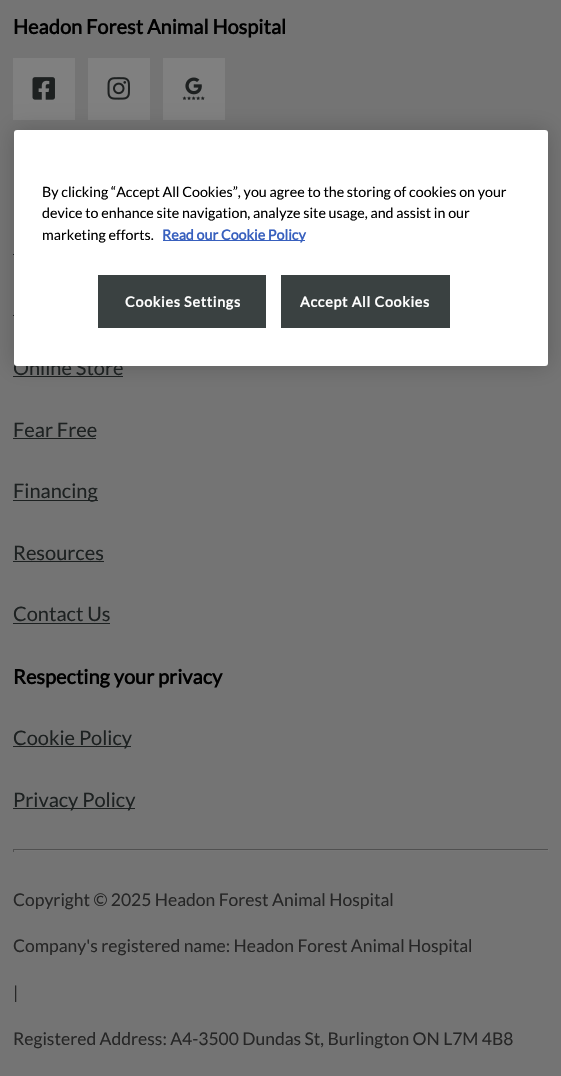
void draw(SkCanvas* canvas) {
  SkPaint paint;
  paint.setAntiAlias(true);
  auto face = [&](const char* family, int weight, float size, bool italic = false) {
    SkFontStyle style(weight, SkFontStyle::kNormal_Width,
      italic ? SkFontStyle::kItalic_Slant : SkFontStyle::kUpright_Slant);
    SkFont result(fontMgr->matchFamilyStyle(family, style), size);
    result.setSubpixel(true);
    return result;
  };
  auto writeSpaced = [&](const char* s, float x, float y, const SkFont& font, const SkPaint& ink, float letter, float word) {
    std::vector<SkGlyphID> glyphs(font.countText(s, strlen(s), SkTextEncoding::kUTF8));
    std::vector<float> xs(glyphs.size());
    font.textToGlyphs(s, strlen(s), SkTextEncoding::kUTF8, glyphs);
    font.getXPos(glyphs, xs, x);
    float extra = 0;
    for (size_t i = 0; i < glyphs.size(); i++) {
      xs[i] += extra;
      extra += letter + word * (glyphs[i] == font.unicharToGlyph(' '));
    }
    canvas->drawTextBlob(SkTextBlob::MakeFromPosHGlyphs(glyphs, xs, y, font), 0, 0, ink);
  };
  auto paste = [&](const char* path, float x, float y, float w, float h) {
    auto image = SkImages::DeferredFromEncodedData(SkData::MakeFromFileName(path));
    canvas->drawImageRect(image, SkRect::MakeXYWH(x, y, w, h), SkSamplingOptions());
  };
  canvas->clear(0xff747474);
  paint.setColor(0xff808080);
  canvas->drawRect(SkRect::MakeXYWH(13, 58, 62, 62), paint);
  paste("img/1.png", 32, 77, 23, 23);
  canvas->drawRect(SkRect::MakeXYWH(88, 58, 62, 62), paint);
  paste("img/2.png", 107, 77, 23, 23);
  canvas->drawRect(SkRect::MakeXYWH(163, 58, 62, 62), paint);
  paste("img/3.png", 182, 77, 23, 23);
  {
    const struct { float x, y, w, h; SkColor color; } items[] = {
      {13, 254, 1, 1, 0xff1d2121},
      {13, 315, 1, 1, 0xff1d2121},
      {13, 376, 110, 1, 0xff1d2121},
      {13, 438, 83, 1, 0xff1d2121},
      {13, 500, 85, 1, 0xff1d2121},
      {13, 561, 91, 1, 0xff1d2121},
      {13, 623, 97, 1, 0xff1d2121},
      {13, 746, 118, 1, 0xff1d2121},
      {13, 808, 122, 1, 0xff1d2121},
      {13, 849, 536, 1, 0xff505050},
      {548, 849, 1, 3, 0xff777777},
      {13, 850, 536, 1, 0xff777777},
      {13, 849, 1, 3, 0xff505050},
    };
    for (auto [x, y, w, h, color] : items) {
      paint.setColor(color);
      canvas->drawRect(SkRect::MakeXYWH(x, y, w, h), paint);
    }
  }
  paint.setColor(0x33000000);
  paint.setMaskFilter(SkMaskFilter::MakeBlur(kNormal_SkBlurStyle, 11));
  canvas->drawRoundRect(SkRect::MakeXYWH(14, 130, 534, 236), 3, 3, paint);
  paint.setMaskFilter(nullptr);
  auto f0 = face("Lato", 700, 20);
  paint.setColor(0xff000000);
  canvas->drawString("Headon Forest Animal Hospital", 13, 34, f0, paint);
  auto f1 = face("Lato", 400, 20);
  paint.setColor(0xff1d2121);
  {
    const struct { const char* s; float x, y; } items[] = {
      {"Online Store", 13, 375},
      {"Fear Free", 13, 437},
      {"Financing", 13, 498},
      {"Resources", 13, 560},
      {"Contact Us", 13, 621},
    };
    for (auto [s, x, y] : items) {
      canvas->drawString(s, x, y, f1, paint);
    }
  }
  paint.setColor(0xff000000);
  canvas->drawString("Respecting your privacy", 13, 684, f0, paint);
  paint.setColor(0xff1d2121);
  canvas->drawString("Cookie Policy", 13, 745, f1, paint);
  canvas->drawString("Privacy Policy", 13, 807, f1, paint);
  auto f2 = face("Lato", 400, 17.5f);
  paint.setColor(0xff262626);
  {
    const struct { const char* s; float x, y; } items[] = {
      {"Copyright © 2025 Headon Forest Animal Hospital", 13, 906},
      {"Company's registered name: Headon Forest Animal Hospital", 13, 952},
      {"|", 13, 999},
      {"Registered Address: A4-3500 Dundas St, Burlington ON L7M 4B8", 13, 1045},
    };
    for (auto [s, x, y] : items) {
      canvas->drawString(s, x, y, f2, paint);
    }
  }
  paint.setColor(0xffffffff);
  canvas->drawRoundRect(SkRect::MakeXYWH(14, 130, 534, 236), 3, 3, paint);
  auto f3 = face("Lato", 400, 14.25f);
  paint.setColor(0xff000000);
  {
    const struct { const char* s; float x, y; } items[] = {
      {"By clicking “Accept All Cookies”, you agree to the storing of cookies on your", 42, 197},
      {"device to enhance site navigation, analyze site usage, and assist in our", 42, 218},
      {"marketing efforts.", 42, 240},
    };
    for (auto [s, x, y] : items) {
      canvas->drawString(s, x, y, f3, paint);
    }
  }
  paint.setColor(0xff3860be);
  canvas->drawRect(SkRect::MakeXYWH(163, 240, 142, 1), paint);
  auto f4 = face("Lato", 700, 14.25f);
  canvas->drawString("Read our Cookie Policy", 162, 240, f4, paint);
  paint.setColor(0xff3a4141);
  canvas->drawRect(SkRect::MakeXYWH(98, 275, 168, 53), paint);
  paint.setColor(0xffffffff);
  writeSpaced("Cookies Settings", 125, 307, f4, paint, 0.75f, 0);
  paint.setColor(0xff3a4141);
  canvas->drawRect(SkRect::MakeXYWH(281, 275, 169, 53), paint);
  paint.setColor(0xffffffff);
  writeSpaced("Accept All Cookies", 300, 307, f4, paint, 0.75f, 0);
}
